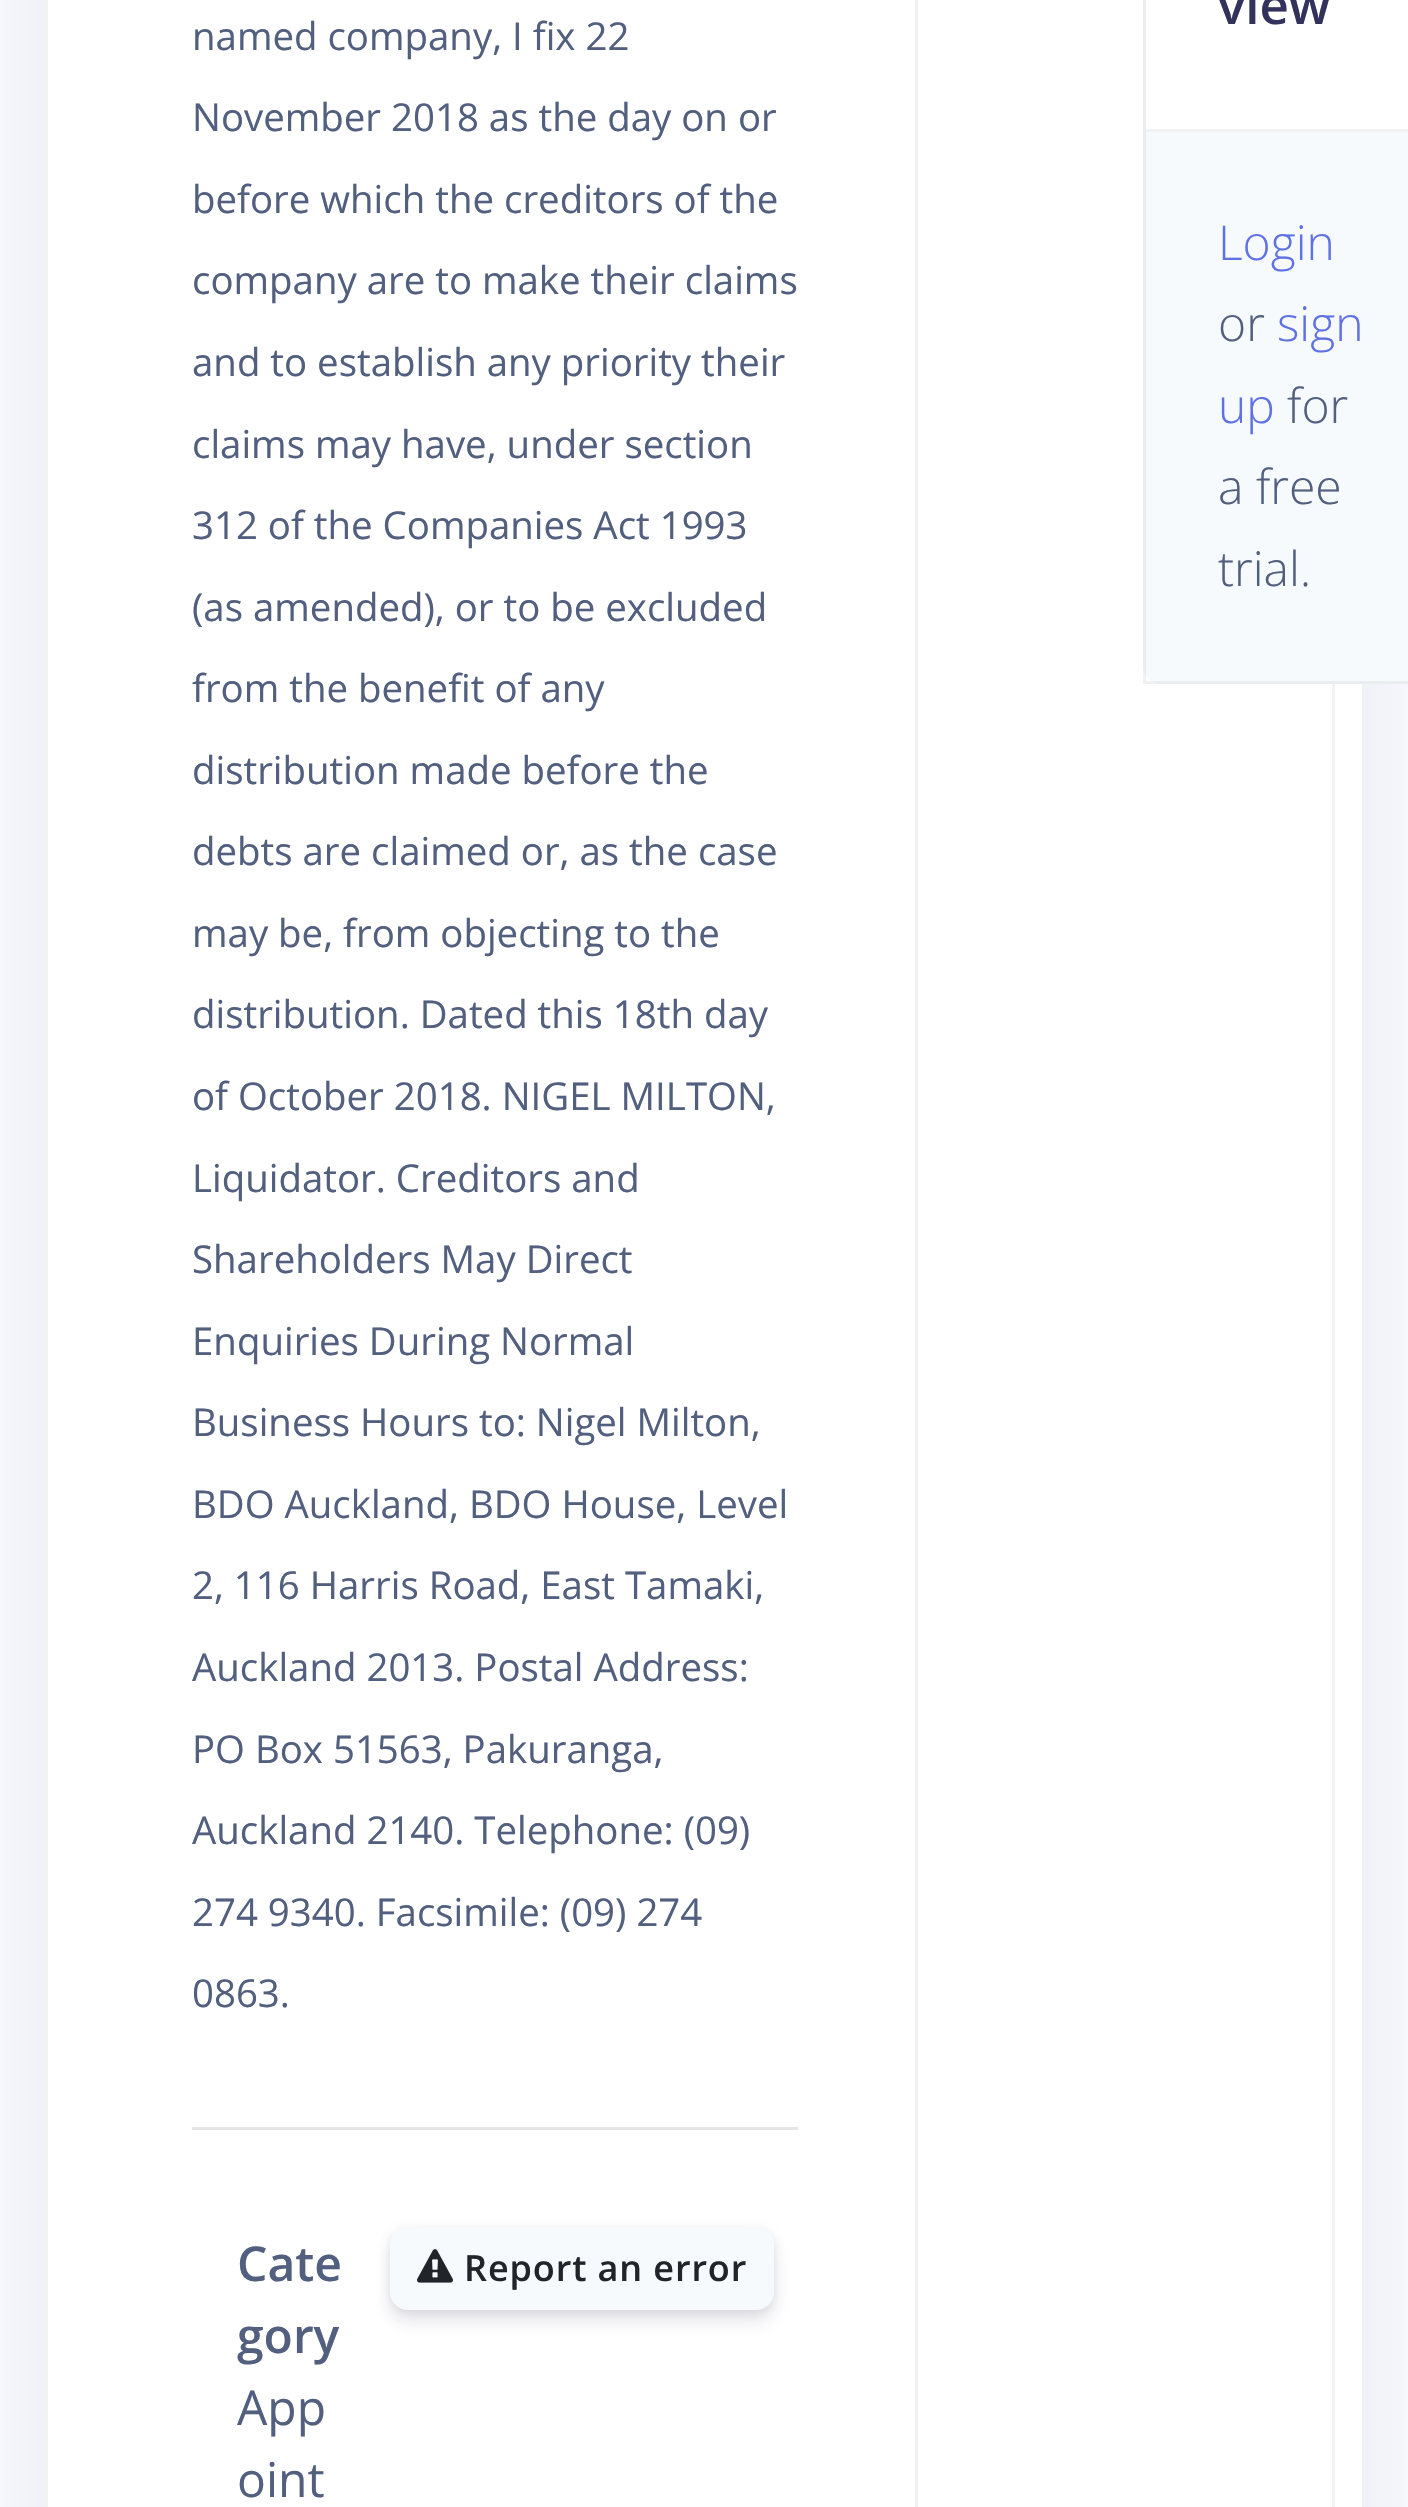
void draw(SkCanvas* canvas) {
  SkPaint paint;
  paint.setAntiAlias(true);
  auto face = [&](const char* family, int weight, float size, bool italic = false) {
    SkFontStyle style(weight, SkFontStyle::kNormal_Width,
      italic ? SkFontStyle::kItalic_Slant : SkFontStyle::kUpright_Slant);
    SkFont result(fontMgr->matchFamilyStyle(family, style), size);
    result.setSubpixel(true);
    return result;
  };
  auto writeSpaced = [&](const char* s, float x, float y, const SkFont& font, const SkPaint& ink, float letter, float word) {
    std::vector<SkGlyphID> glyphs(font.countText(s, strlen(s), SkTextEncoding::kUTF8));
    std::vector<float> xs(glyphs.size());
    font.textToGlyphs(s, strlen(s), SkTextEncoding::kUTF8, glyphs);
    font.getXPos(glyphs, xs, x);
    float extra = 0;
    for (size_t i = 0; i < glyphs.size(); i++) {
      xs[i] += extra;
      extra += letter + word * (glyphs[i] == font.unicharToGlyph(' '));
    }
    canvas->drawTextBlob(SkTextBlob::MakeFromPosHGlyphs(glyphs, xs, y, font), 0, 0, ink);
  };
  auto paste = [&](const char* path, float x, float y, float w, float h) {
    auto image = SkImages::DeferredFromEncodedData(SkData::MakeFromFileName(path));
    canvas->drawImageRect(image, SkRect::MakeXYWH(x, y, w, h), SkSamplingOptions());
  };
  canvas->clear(0xfff8f9fe);
  paint.setColor(0x268898aa);
  paint.setMaskFilter(SkMaskFilter::MakeBlur(kNormal_SkBlurStyle, 48));
  canvas->drawRoundRect(SkRect::MakeXYWH(45, -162, 1320, 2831), 18, 18, paint);
  paint.setMaskFilter(nullptr);
  paint.setColor(0xffffffff);
  canvas->drawRect(SkRect::MakeXYWH(46.5f, -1.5f, 1317, 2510), paint);
  paint.setStroke(true);
  paint.setStrokeWidth(3);
  paint.setColor(0xfff2f2f2);
  canvas->drawRect(SkRect::MakeXYWH(46.5f, -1.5f, 1317, 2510), paint);
  paint.setStroke(false);
  paint.setColor(0xffe6e6e6);
  canvas->drawRect(SkRect::MakeXYWH(192, 2127, 606, 3), paint);
  paint.setColor(0x14000000);
  paint.setMaskFilter(SkMaskFilter::MakeBlur(kNormal_SkBlurStyle, 4.5f));
  canvas->drawRoundRect(SkRect::MakeXYWH(390, 2229, 384, 84), 18, 18, paint);
  paint.setMaskFilter(nullptr);
  paint.setColor(0x1c32325d);
  paint.setMaskFilter(SkMaskFilter::MakeBlur(kNormal_SkBlurStyle, 9));
  canvas->drawRoundRect(SkRect::MakeXYWH(390, 2238, 384, 84), 18, 18, paint);
  paint.setMaskFilter(nullptr);
  paint.setColor(0xfff7fafc);
  canvas->drawRoundRect(SkRect::MakeXYWH(391.5f, 2227.5f, 381, 81), 16.5f, 16.5f, paint);
  paint.setStroke(true);
  canvas->drawRoundRect(SkRect::MakeXYWH(391.5f, 2227.5f, 381, 81), 16.5f, 16.5f, paint);
  paste("img/1.png", 417, 2249, 36, 34);
  paint.setColor(0xfff2f2f2);
  canvas->drawRect(SkRect::MakeXYWH(916.5f, -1.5f, 417, 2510), paint);
  paint.setStroke(false);
  paint.setColor(0xfff7fafc);
  canvas->drawRoundRect(SkRect::MakeXYWH(1143, -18, 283, 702), 18, 18, paint);
  paint.setStroke(true);
  paint.setColor(0x0d000000);
  canvas->drawRect(SkRect::MakeXYWH(1144.5f, -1.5f, 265, 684), paint);
  paint.setStroke(false);
  paint.setColor(0xffffffff);
  canvas->drawRect(SkRect::MakeXYWH(1146, 0, 262, 129), paint);
  paint.setColor(0xfff2f2f2);
  canvas->drawRect(SkRect::MakeXYWH(1146, 129, 262, 3), paint);
  auto f0 = face("Open Sans", 400, 38.4f);
  paint.setColor(0xff525f7f);
  {
    const struct { const char* s; float x, y; } items[] = {
      {"named company, I fix 22", 192, 50},
      {"November 2018 as the day on or", 192, 131},
      {"before which the creditors of the", 192, 213},
      {"company are to make their claims", 192, 294},
      {"and to establish any priority their", 192, 376},
      {"claims may have, under section", 192, 458},
      {"312 of the Companies Act 1993", 192, 539},
      {"(as amended), or to be excluded", 192, 621},
      {"from the benefit of any", 192, 702},
      {"distribution made before the", 192, 784},
      {"debts are claimed or, as the case", 192, 865},
      {"may be, from objecting to the", 192, 947},
      {"distribution. Dated this 18th day", 192, 1028},
      {"of October 2018. NIGEL MILTON,", 192, 1110},
      {"Liquidator. Creditors and", 192, 1192},
      {"Shareholders May Direct", 192, 1273},
      {"Enquiries During Normal", 192, 1355},
      {"Business Hours to: Nigel Milton,", 192, 1436},
      {"BDO Auckland, BDO House, Level", 192, 1518},
      {"2, 116 Harris Road, East Tamaki,", 192, 1599},
      {"Auckland 2013. Postal Address:", 192, 1681},
      {"PO Box 51563, Pakuranga,", 192, 1763},
      {"Auckland 2140. Telephone: (09)", 192, 1844},
      {"274 9340. Facsimile: (09) 274", 192, 1926},
      {"0863.", 192, 2007},
    };
    for (auto [s, x, y] : items) {
      canvas->drawString(s, x, y, f0, paint);
    }
  }
  auto f1 = face("Open Sans", 600, 48);
  canvas->drawString("Cate", 237, 2281, f1, paint);
  canvas->drawString("gory", 237, 2353, f1, paint);
  auto f2 = face("Open Sans", 400, 48);
  canvas->drawString("App", 237, 2425, f2, paint);
  canvas->drawString("oint", 237, 2497, f2, paint);
  auto f3 = face("Open Sans", 600, 36);
  paint.setColor(0xff212529);
  writeSpaced("Report an error", 464, 2281, f3, paint, 0.9f, 0);
  auto f4 = face("Open Sans", 600, 51);
  paint.setColor(0xff32325d);
  canvas->drawString("view", 1218, 24, f4, paint);
  auto f5 = face("Open Sans", 300, 48);
  paint.setColor(0xff5e72e4);
  canvas->drawString("Login", 1218, 260, f5, paint);
  paint.setColor(0xff525f7f);
  canvas->drawString("or", 1218, 341, f5, paint);
  paint.setColor(0xff5e72e4);
  canvas->drawString("sign", 1277, 341, f5, paint);
  canvas->drawString("up", 1218, 423, f5, paint);
  paint.setColor(0xff525f7f);
  {
    const struct { const char* s; float x, y; } items[] = {
      {"for", 1287, 423},
      {"a free", 1218, 504},
      {"trial.", 1218, 586},
    };
    for (auto [s, x, y] : items) {
      canvas->drawString(s, x, y, f5, paint);
    }
  }
}
